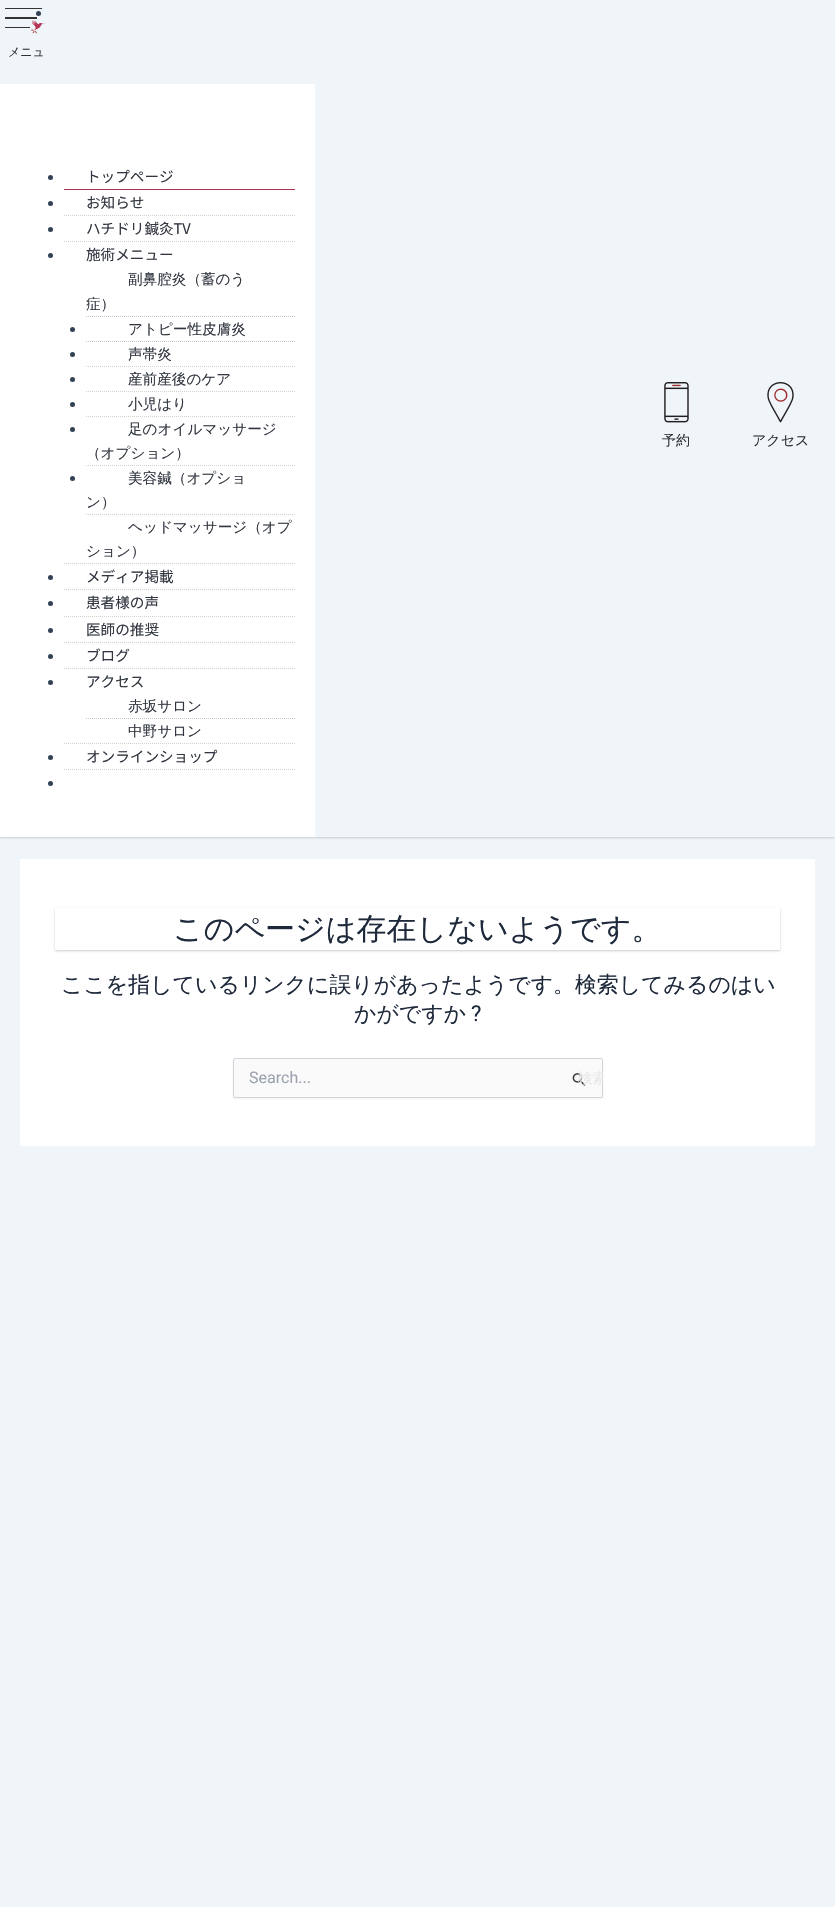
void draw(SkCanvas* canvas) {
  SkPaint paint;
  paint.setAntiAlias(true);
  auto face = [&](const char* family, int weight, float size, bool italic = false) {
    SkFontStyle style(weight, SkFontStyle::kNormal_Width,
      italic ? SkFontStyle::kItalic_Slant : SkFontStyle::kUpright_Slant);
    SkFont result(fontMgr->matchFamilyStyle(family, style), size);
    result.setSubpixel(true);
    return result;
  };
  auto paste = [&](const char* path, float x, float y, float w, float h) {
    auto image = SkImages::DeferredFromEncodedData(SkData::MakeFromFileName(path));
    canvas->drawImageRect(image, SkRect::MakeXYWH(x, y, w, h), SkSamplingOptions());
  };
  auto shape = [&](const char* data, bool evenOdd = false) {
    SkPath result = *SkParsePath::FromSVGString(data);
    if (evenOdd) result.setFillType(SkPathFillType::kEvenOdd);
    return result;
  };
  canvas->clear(0xfff0f5fa);
  canvas->save();
  canvas->clipRect(SkRect::MakeXYWH(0, 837, 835, 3));
  paint.setColor(0xffcccccc);
  paint.setMaskFilter(SkMaskFilter::MakeBlur(kNormal_SkBlurStyle, 1));
  canvas->drawRect(SkRect::MakeXYWH(0, 1, 835, 837), paint);
  paint.setMaskFilter(nullptr);
  canvas->restore();
  paste("img/1.png", 5, 8, 41, 26);
  paint.setColor(0xffffffff);
  canvas->drawRect(SkRect::MakeXYWH(0, 84, 315, 753), paint);
  paint.setColor(0xff334155);
  canvas->drawCircle(38.5f, 13.5f, 2.5f, paint);
  paint.setColor(0xffb53453);
  canvas->drawRect(SkRect::MakeXYWH(64, 189, 231, 1), paint);
  paint.setColor(0xff334155);
  canvas->drawCircle(50.5f, 177.5f, 2.5f, paint);
  paint.setStroke(true);
  paint.setStrokeWidth(1);
  paint.setColor(0xffd3d2d2);
  paint.setPathEffect(SkDashPathEffect::Make({{1, 1}}, 0));
  canvas->drawPath(shape("M64 215.5H295"), paint);
  paint.setPathEffect(nullptr);
  paint.setStroke(false);
  paint.setColor(0xff334155);
  canvas->drawCircle(50.5f, 203.5f, 2.5f, paint);
  paint.setStroke(true);
  paint.setColor(0xffd3d2d2);
  paint.setPathEffect(SkDashPathEffect::Make({{1, 1}}, 0));
  canvas->drawPath(shape("M64 241.5H295"), paint);
  paint.setPathEffect(nullptr);
  paint.setStroke(false);
  paint.setColor(0xff334155);
  canvas->drawCircle(50.5f, 229.5f, 2.5f, paint);
  paint.setStroke(true);
  paint.setColor(0xffd3d2d2);
  paint.setPathEffect(SkDashPathEffect::Make({{1, 1}}, 0));
  canvas->drawPath(shape("M64 563.5H295"), paint);
  paint.setPathEffect(nullptr);
  paint.setStroke(false);
  paint.setColor(0xff334155);
  canvas->drawCircle(50.5f, 255.5f, 2.5f, paint);
  paint.setStroke(true);
  paint.setColor(0xffc4c4c4);
  paint.setPathEffect(SkDashPathEffect::Make({{1, 1}}, 0));
  canvas->drawPath(shape("M86 316.5H295"), paint);
  paint.setPathEffect(nullptr);
  paint.setPathEffect(SkDashPathEffect::Make({{1, 1}}, 0));
  canvas->drawPath(shape("M86 341.5H295"), paint);
  paint.setPathEffect(nullptr);
  paint.setStroke(false);
  paint.setColor(0xff334155);
  canvas->drawCircle(72.5f, 329.5f, 2.5f, paint);
  paint.setStroke(true);
  paint.setColor(0xffd3d2d2);
  paint.setPathEffect(SkDashPathEffect::Make({{1, 1}}, 0));
  canvas->drawPath(shape("M86 366.5H295"), paint);
  paint.setPathEffect(nullptr);
  paint.setStroke(false);
  paint.setColor(0xff334155);
  canvas->drawCircle(72.5f, 354.5f, 2.5f, paint);
  paint.setStroke(true);
  paint.setColor(0xffd3d2d2);
  paint.setPathEffect(SkDashPathEffect::Make({{1, 1}}, 0));
  canvas->drawPath(shape("M86 391.5H295"), paint);
  paint.setPathEffect(nullptr);
  paint.setStroke(false);
  paint.setColor(0xff334155);
  canvas->drawCircle(72.5f, 379.5f, 2.5f, paint);
  paint.setStroke(true);
  paint.setColor(0xffd3d2d2);
  paint.setPathEffect(SkDashPathEffect::Make({{1, 1}}, 0));
  canvas->drawPath(shape("M86 416.5H295"), paint);
  paint.setPathEffect(nullptr);
  paint.setStroke(false);
  paint.setColor(0xff334155);
  canvas->drawCircle(72.5f, 404.5f, 2.5f, paint);
  paint.setStroke(true);
  paint.setColor(0xffd3d2d2);
  paint.setPathEffect(SkDashPathEffect::Make({{1, 1}}, 0));
  canvas->drawPath(shape("M86 465.5H295"), paint);
  paint.setPathEffect(nullptr);
  paint.setStroke(false);
  paint.setColor(0xff334155);
  canvas->drawCircle(72.5f, 429.5f, 2.5f, paint);
  paint.setStroke(true);
  paint.setColor(0xffd3d2d2);
  paint.setPathEffect(SkDashPathEffect::Make({{1, 1}}, 0));
  canvas->drawPath(shape("M86 514.5H295"), paint);
  paint.setPathEffect(nullptr);
  paint.setStroke(false);
  paint.setColor(0xff334155);
  canvas->drawCircle(72.5f, 478.5f, 2.5f, paint);
  paint.setStroke(true);
  paint.setColor(0xffd3d2d2);
  paint.setPathEffect(SkDashPathEffect::Make({{1, 1}}, 0));
  canvas->drawPath(shape("M64 589.5H295"), paint);
  paint.setPathEffect(nullptr);
  paint.setStroke(false);
  paint.setColor(0xff334155);
  canvas->drawCircle(50.5f, 577.5f, 2.5f, paint);
  paint.setStroke(true);
  paint.setColor(0xffd3d2d2);
  paint.setPathEffect(SkDashPathEffect::Make({{1, 1}}, 0));
  canvas->drawPath(shape("M64 616.5H295"), paint);
  paint.setPathEffect(nullptr);
  paint.setStroke(false);
  paint.setColor(0xff334155);
  canvas->drawCircle(50.5f, 603.5f, 2.5f, paint);
  paint.setStroke(true);
  paint.setColor(0xffd3d2d2);
  paint.setPathEffect(SkDashPathEffect::Make({{1, 1}}, 0));
  canvas->drawPath(shape("M64 642.5H295"), paint);
  paint.setPathEffect(nullptr);
  paint.setStroke(false);
  paint.setColor(0xff334155);
  canvas->drawCircle(50.5f, 630.5f, 2.5f, paint);
  paint.setStroke(true);
  paint.setColor(0xffd3d2d2);
  paint.setPathEffect(SkDashPathEffect::Make({{1, 1}}, 0));
  canvas->drawPath(shape("M64 668.5H295"), paint);
  paint.setPathEffect(nullptr);
  paint.setStroke(false);
  paint.setColor(0xff334155);
  canvas->drawCircle(50.5f, 656.5f, 2.5f, paint);
  paint.setStroke(true);
  paint.setColor(0xffd3d2d2);
  paint.setPathEffect(SkDashPathEffect::Make({{1, 1}}, 0));
  canvas->drawPath(shape("M64 743.5H295"), paint);
  paint.setPathEffect(nullptr);
  paint.setStroke(false);
  paint.setColor(0xff334155);
  canvas->drawCircle(50.5f, 682.5f, 2.5f, paint);
  paint.setStroke(true);
  paint.setColor(0xffc4c4c4);
  paint.setPathEffect(SkDashPathEffect::Make({{1, 1}}, 0));
  canvas->drawPath(shape("M86 718.5H295"), paint);
  paint.setPathEffect(nullptr);
  paint.setColor(0xffd3d2d2);
  paint.setPathEffect(SkDashPathEffect::Make({{1, 1}}, 0));
  canvas->drawPath(shape("M64 769.5H295"), paint);
  paint.setPathEffect(nullptr);
  paint.setStroke(false);
  paint.setColor(0xff334155);
  canvas->drawCircle(50.5f, 757.5f, 2.5f, paint);
  canvas->drawCircle(50.5f, 783.5f, 2.5f, paint);
  paste("img/2.png", 664, 382, 25, 41);
  paste("img/3.png", 767, 382, 27, 41);
  paint.setColor(0xffffffff);
  canvas->drawRect(SkRect::MakeXYWH(20, 859, 795, 287), paint);
  canvas->save();
  canvas->clipPath(shape("M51 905H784V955H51ZM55 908H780V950H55Z", true), true);
  paint.setColor(0xffcccccc);
  paint.setMaskFilter(SkMaskFilter::MakeBlur(kNormal_SkBlurStyle, 1));
  canvas->drawRect(SkRect::MakeXYWH(55, 909, 725, 42), paint);
  paint.setMaskFilter(nullptr);
  canvas->restore();
  paint.setColor(0x0d000000);
  paint.setMaskFilter(SkMaskFilter::MakeBlur(kNormal_SkBlurStyle, 1));
  canvas->drawRoundRect(SkRect::MakeXYWH(233, 1059, 370, 40), 2, 2, paint);
  paint.setMaskFilter(nullptr);
  paint.setColor(0xfffafafa);
  canvas->drawRoundRect(SkRect::MakeXYWH(233.5f, 1058.5f, 369, 39), 1.5f, 1.5f, paint);
  paint.setStroke(true);
  paint.setColor(0xffd1d5db);
  canvas->drawRoundRect(SkRect::MakeXYWH(233.5f, 1058.5f, 369, 39), 1.5f, 1.5f, paint);
  paste("img/4.png", 572, 1073, 14, 13);
  auto f0 = face("WenQuanYi Zen Hei", 500, 12);
  paint.setStroke(false);
  paint.setColor(0xff333333);
  canvas->drawString("メニュ", 8, 56, f0, paint);
  auto f1 = face("Noto Sans JP", 400, 14.6f);
  paint.setColor(0xff313640);
  {
    const struct { const char* s; float x, y; } items[] = {
      {"トップページ", 86, 182},
      {"お知らせ", 86, 208},
      {"ハチドリ鍼灸TV", 86, 234},
      {"施術メニュー", 86, 260},
    };
    for (auto [s, x, y] : items) {
      canvas->drawString(s, x, y, f1, paint);
    }
  }
  auto f2 = face("WenQuanYi Zen Hei", 500, 14.6f);
  {
    const struct { const char* s; float x, y; } items[] = {
      {"副鼻腔炎（蓄のう", 128, 284},
      {"症）", 86, 309},
      {"アトピー性皮膚炎", 128, 334},
      {"声帯炎", 128, 359},
      {"産前産後のケア", 128, 384},
      {"小児はり", 128, 409},
      {"足のオイルマッサージ", 128, 434},
      {"（オプション）", 86, 458},
      {"美容鍼（オプショ", 128, 483},
      {"ン）", 86, 507},
      {"ヘッドマッサージ（オプ", 128, 532},
      {"ション）", 86, 556},
    };
    for (auto [s, x, y] : items) {
      canvas->drawString(s, x, y, f2, paint);
    }
  }
  {
    const struct { const char* s; float x, y; } items[] = {
      {"メディア掲載", 86, 582},
      {"患者様の声", 86, 608},
      {"医師の推奨", 86, 635},
      {"ブログ", 86, 661},
      {"アクセス", 86, 687},
    };
    for (auto [s, x, y] : items) {
      canvas->drawString(s, x, y, f1, paint);
    }
  }
  canvas->drawString("赤坂サロン", 128, 711, f2, paint);
  canvas->drawString("中野サロン", 128, 736, f2, paint);
  canvas->drawString("オンラインショップ", 86, 762, f1, paint);
  auto f3 = face("WenQuanYi Zen Hei", 500, 14);
  paint.setColor(0xff333333);
  canvas->drawString("予約", 662, 445, f3, paint);
  canvas->drawString("アクセス", 752, 445, f3, paint);
  auto f4 = face("WenQuanYi Zen Hei", 500, 30);
  paint.setColor(0xff1e293b);
  canvas->drawString("このページは存在しないようです。", 173, 939, f4, paint);
  auto f5 = face("WenQuanYi Zen Hei", 500, 21.9f);
  canvas->drawString("ここを指しているリンクに誤りがあったようです。検索してみるのはい", 61, 992, f5, paint);
  canvas->drawString("かがですか", 354, 1021, f5, paint);
  auto f6 = face("Roboto", 400, 21.9f);
  canvas->drawString("?", 471, 1021, f6, paint);
  auto f7 = face("Roboto", 400, 16);
  paint.setColor(0xff9ca3af);
  canvas->drawString("Search...", 249, 1083, f7, paint);
  canvas->save();
  canvas->clipPath(shape("M560 1058H601C602 1058 603 1059 603 1060V1096C603 1097 602 1098 601 1098H560C559 1098 558 1097 558 1096V1060C558 1059 559 1058 560 1058Z"), true);
  paint.setColor(0xffe8e8e8);
  canvas->drawString("検索", 578, 1083, f2, paint);
  canvas->restore();
}
